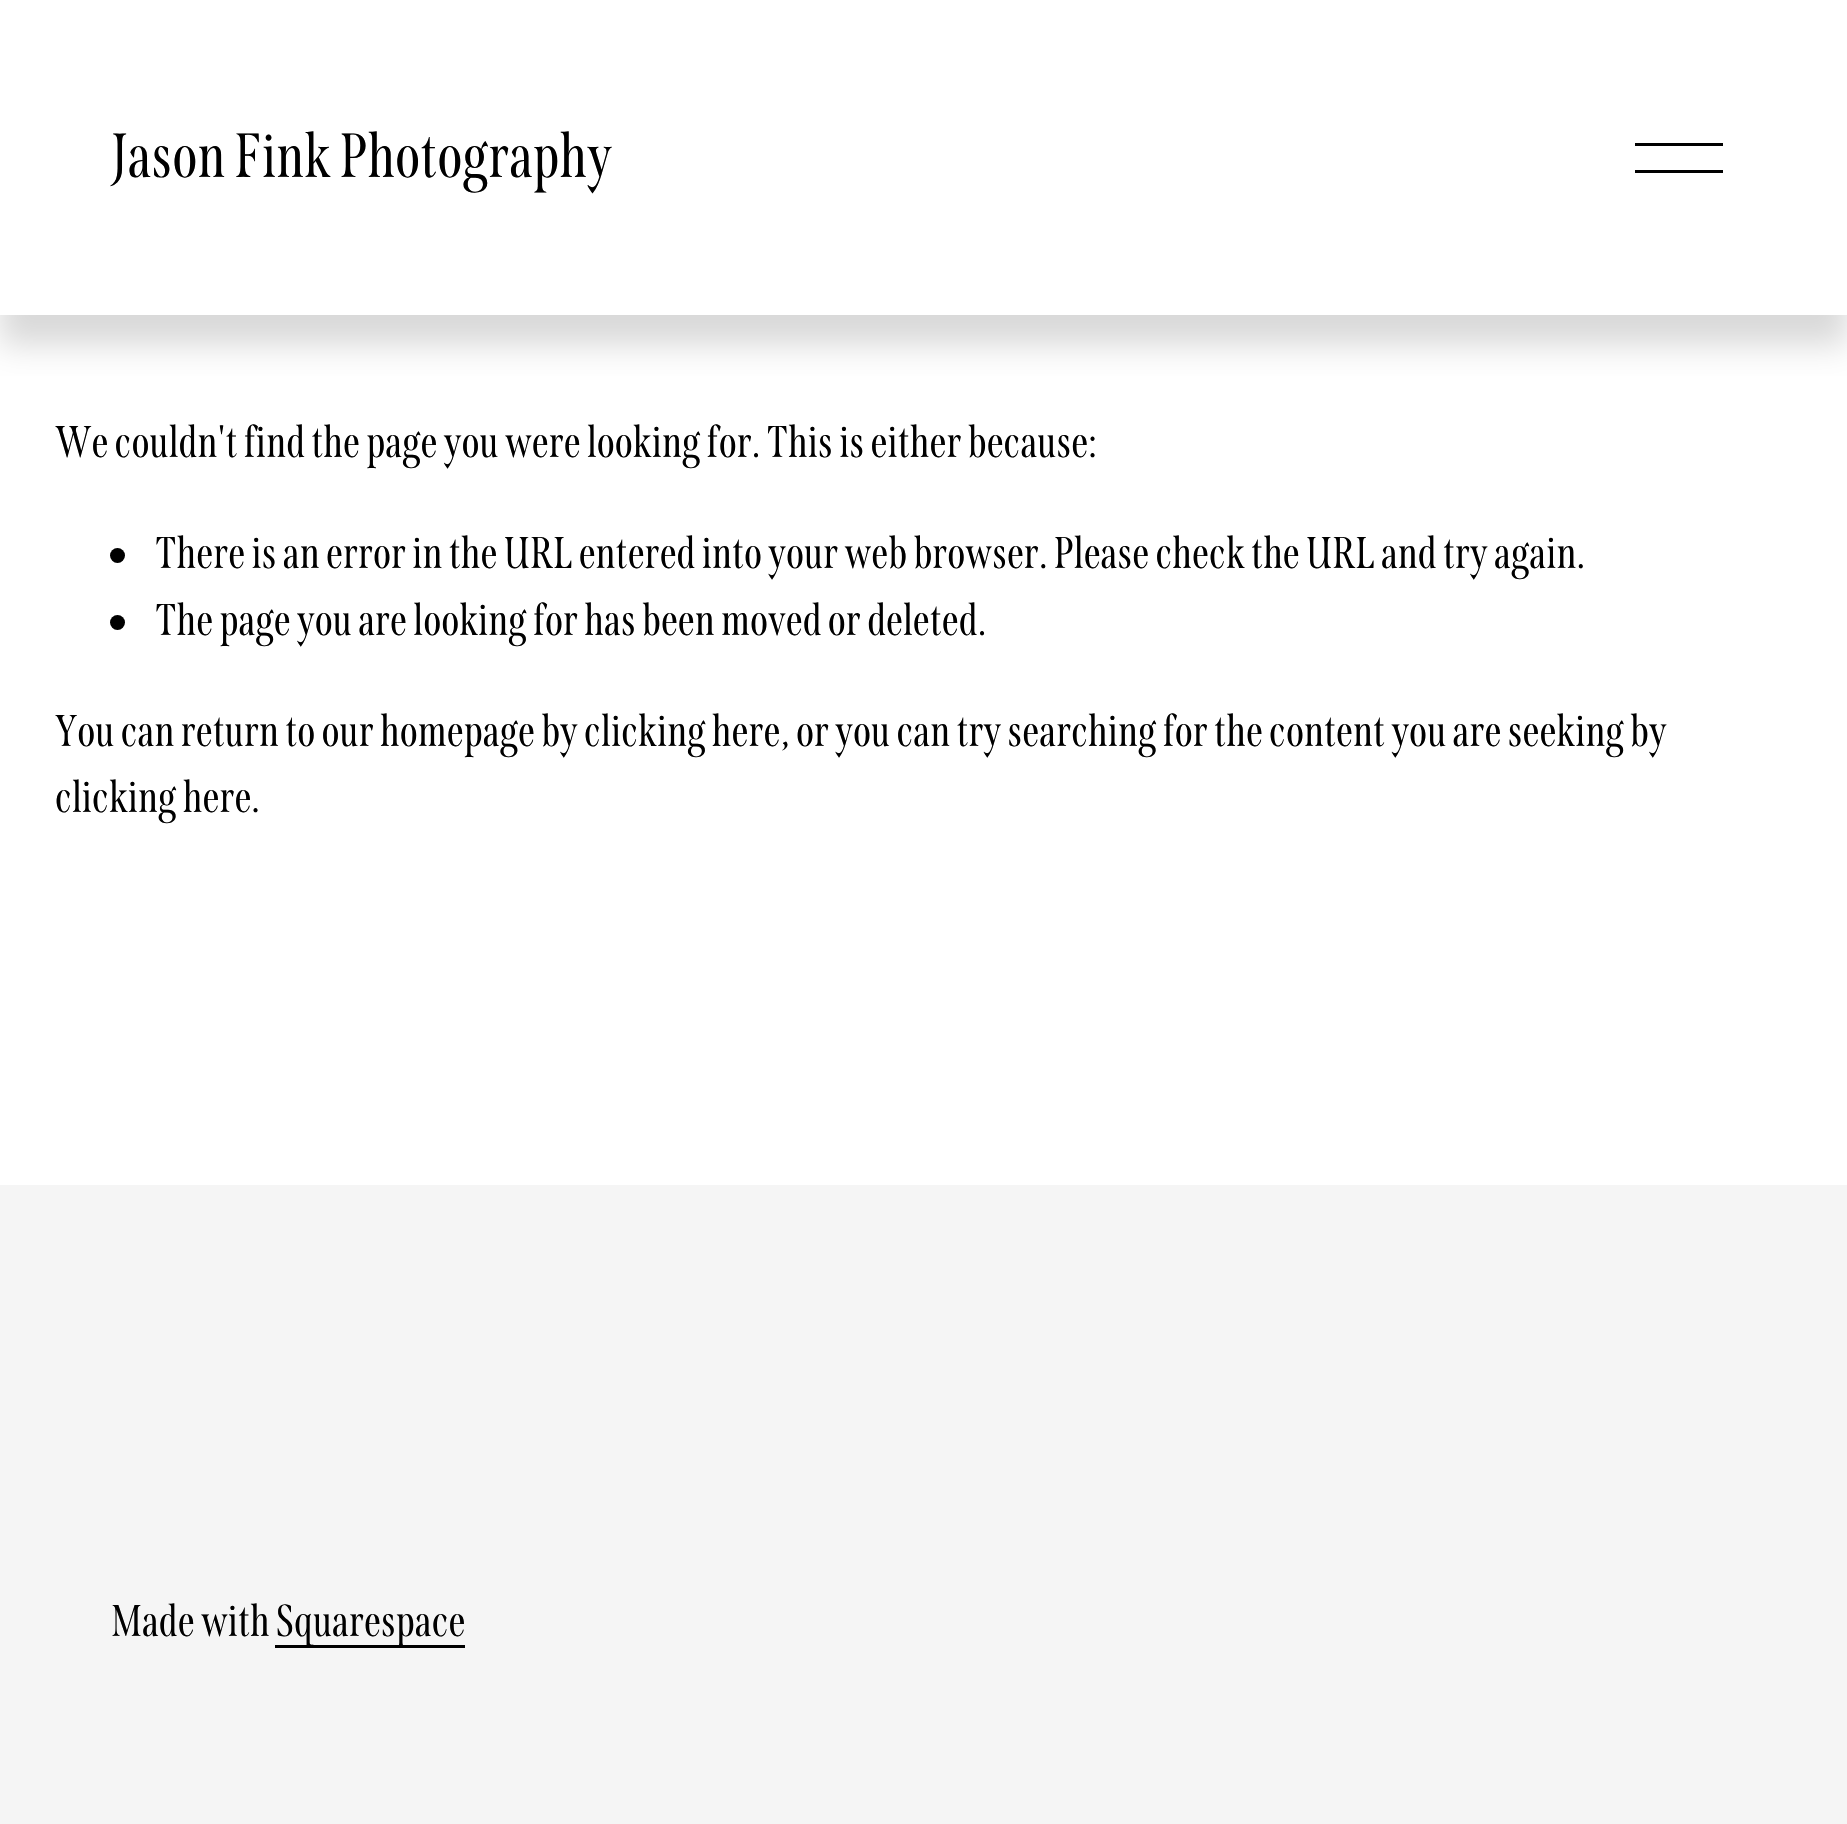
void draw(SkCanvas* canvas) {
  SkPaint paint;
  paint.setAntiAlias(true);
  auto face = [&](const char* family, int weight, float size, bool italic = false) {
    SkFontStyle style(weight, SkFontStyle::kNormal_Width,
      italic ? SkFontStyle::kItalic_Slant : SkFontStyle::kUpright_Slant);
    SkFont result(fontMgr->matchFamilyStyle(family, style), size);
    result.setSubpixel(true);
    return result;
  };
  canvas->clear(0xffffffff);
  canvas->save();
  canvas->clipRect(SkRect::MakeXYWH(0, 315, 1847, 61));
  paint.setColor(0xffd9d9d9);
  paint.setMaskFilter(SkMaskFilter::MakeBlur(kNormal_SkBlurStyle, 15));
  canvas->drawRect(SkRect::MakeXYWH(0, 30, 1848, 315), paint);
  paint.setMaskFilter(nullptr);
  canvas->restore();
  paint.setColor(0xff000000);
  canvas->drawRect(SkRect::MakeXYWH(1635, 143, 88, 3), paint);
  canvas->drawRect(SkRect::MakeXYWH(1635, 170, 88, 3), paint);
  canvas->drawCircle(117.5f, 555.5f, 7.5f, paint);
  canvas->drawCircle(117.5f, 622.5f, 7.5f, paint);
  paint.setColor(0xfff5f5f5);
  canvas->drawRect(SkRect::MakeXYWH(0, 1185, 1847, 639), paint);
  paint.setColor(0xff000000);
  canvas->drawRect(SkRect::MakeXYWH(275, 1645, 190, 3), paint);
  auto f0 = face("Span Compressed", 400, 62.25f);
  canvas->drawString("Jason Fink Photography", 111, 177, f0, paint);
  auto f1 = face("Span Compressed", 400, 44.45f);
  {
    const struct { const char* s; float x, y; } items[] = {
      {"We couldn't find the page you were looking for. This is either because:", 55, 457},
      {"There is an error in the URL entered into your web browser. Please check the URL and try again.", 155, 568},
      {"The page you are looking for has been moved or deleted.", 155, 635},
      {"You can return to our homepage by clicking here, or you can try searching for the content you are seeking by", 55, 746},
      {"clicking here.", 55, 812},
      {"Made with", 111, 1636},
      {"Squarespace", 276, 1636},
    };
    for (auto [s, x, y] : items) {
      canvas->drawString(s, x, y, f1, paint);
    }
  }
}
